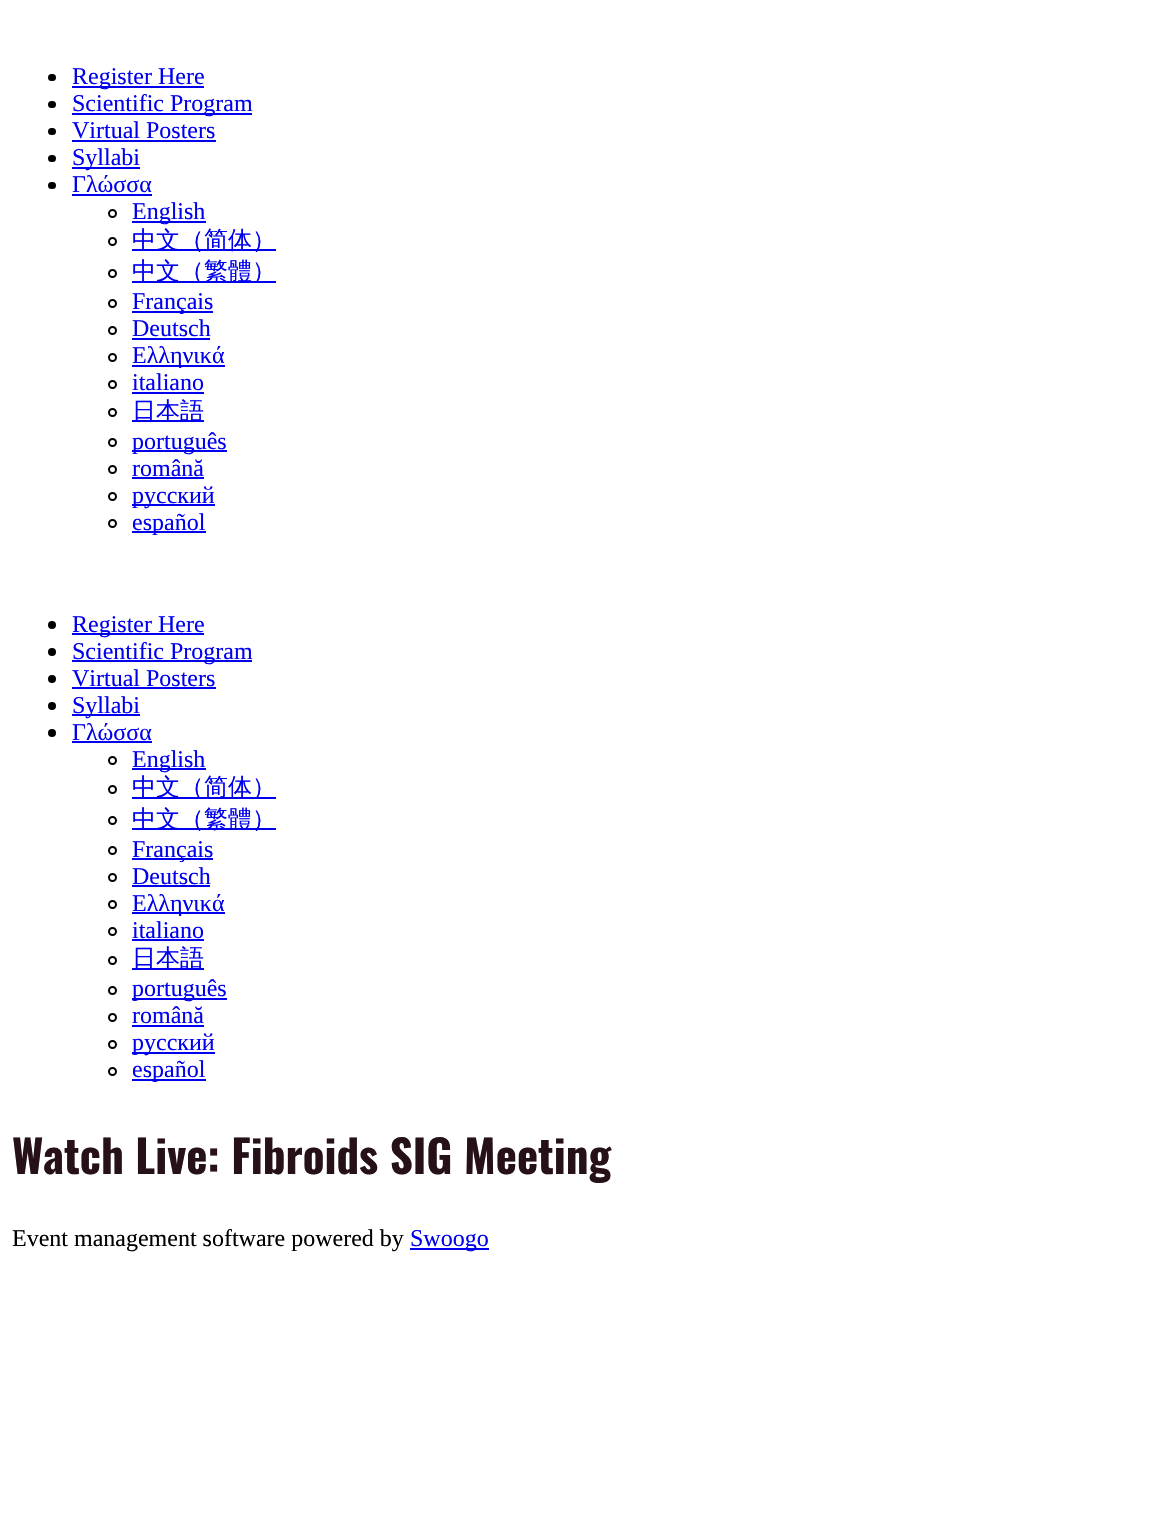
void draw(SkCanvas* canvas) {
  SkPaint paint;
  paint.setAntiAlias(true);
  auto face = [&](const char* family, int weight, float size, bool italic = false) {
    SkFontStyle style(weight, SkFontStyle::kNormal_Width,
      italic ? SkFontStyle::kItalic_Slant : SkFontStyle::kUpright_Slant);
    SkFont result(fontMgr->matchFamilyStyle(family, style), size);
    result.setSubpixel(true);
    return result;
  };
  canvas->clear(0xffffffff);
  paint.setColor(0xff000000);
  canvas->drawRoundRect(SkRect::MakeXYWH(48, 74, 8, 7), 3.5f, 3.5f, paint);
  paint.setColor(0xff0000ee);
  canvas->drawRect(SkRect::MakeXYWH(72, 86, 132, 2), paint);
  paint.setColor(0xff000000);
  canvas->drawRoundRect(SkRect::MakeXYWH(48, 101, 8, 7), 3.5f, 3.5f, paint);
  paint.setColor(0xff0000ee);
  canvas->drawRect(SkRect::MakeXYWH(72, 113, 180, 2), paint);
  paint.setColor(0xff000000);
  canvas->drawRoundRect(SkRect::MakeXYWH(48, 128, 8, 7), 3.5f, 3.5f, paint);
  paint.setColor(0xff0000ee);
  canvas->drawRect(SkRect::MakeXYWH(72, 140, 144, 2), paint);
  paint.setColor(0xff000000);
  canvas->drawRoundRect(SkRect::MakeXYWH(48, 155, 8, 7), 3.5f, 3.5f, paint);
  paint.setColor(0xff0000ee);
  canvas->drawRect(SkRect::MakeXYWH(72, 167, 68, 2), paint);
  paint.setColor(0xff000000);
  canvas->drawRoundRect(SkRect::MakeXYWH(48, 182, 8, 7), 3.5f, 3.5f, paint);
  paint.setColor(0xff0000ee);
  canvas->drawRect(SkRect::MakeXYWH(72, 194, 80, 2), paint);
  paint.setStroke(true);
  paint.setStrokeWidth(2);
  paint.setColor(0xff000000);
  canvas->drawCircle(112.5f, 213.5f, 3.5f, paint);
  paint.setStroke(false);
  paint.setColor(0xff0000ee);
  canvas->drawRect(SkRect::MakeXYWH(132, 221, 74, 2), paint);
  paint.setStroke(true);
  paint.setColor(0xff000000);
  canvas->drawCircle(112.5f, 241.5f, 3.5f, paint);
  paint.setStroke(false);
  paint.setColor(0xff0000ee);
  canvas->drawRect(SkRect::MakeXYWH(132, 249, 144, 2), paint);
  paint.setStroke(true);
  paint.setColor(0xff000000);
  canvas->drawCircle(112.5f, 273.5f, 3.5f, paint);
  paint.setStroke(false);
  paint.setColor(0xff0000ee);
  canvas->drawRect(SkRect::MakeXYWH(132, 281, 144, 2), paint);
  paint.setStroke(true);
  paint.setColor(0xff000000);
  canvas->drawCircle(112.5f, 303.5f, 3.5f, paint);
  paint.setStroke(false);
  paint.setColor(0xff0000ee);
  canvas->drawRect(SkRect::MakeXYWH(132, 311, 81, 2), paint);
  paint.setStroke(true);
  paint.setColor(0xff000000);
  canvas->drawCircle(112.5f, 330.5f, 3.5f, paint);
  paint.setStroke(false);
  paint.setColor(0xff0000ee);
  canvas->drawRect(SkRect::MakeXYWH(132, 338, 78, 2), paint);
  paint.setStroke(true);
  paint.setColor(0xff000000);
  canvas->drawCircle(112.5f, 357.5f, 3.5f, paint);
  paint.setStroke(false);
  paint.setColor(0xff0000ee);
  canvas->drawRect(SkRect::MakeXYWH(132, 365, 93, 2), paint);
  paint.setStroke(true);
  paint.setColor(0xff000000);
  canvas->drawCircle(112.5f, 384.5f, 3.5f, paint);
  paint.setStroke(false);
  paint.setColor(0xff0000ee);
  canvas->drawRect(SkRect::MakeXYWH(132, 392, 72, 2), paint);
  paint.setStroke(true);
  paint.setColor(0xff000000);
  canvas->drawCircle(112.5f, 412.5f, 3.5f, paint);
  paint.setStroke(false);
  paint.setColor(0xff0000ee);
  canvas->drawRect(SkRect::MakeXYWH(132, 420, 72, 2), paint);
  paint.setStroke(true);
  paint.setColor(0xff000000);
  canvas->drawCircle(112.5f, 442.5f, 3.5f, paint);
  paint.setStroke(false);
  paint.setColor(0xff0000ee);
  canvas->drawRect(SkRect::MakeXYWH(132, 450, 95, 2), paint);
  paint.setStroke(true);
  paint.setColor(0xff000000);
  canvas->drawCircle(112.5f, 469.5f, 3.5f, paint);
  paint.setStroke(false);
  paint.setColor(0xff0000ee);
  canvas->drawRect(SkRect::MakeXYWH(132, 477, 72, 2), paint);
  paint.setStroke(true);
  paint.setColor(0xff000000);
  canvas->drawCircle(112.5f, 496.5f, 3.5f, paint);
  paint.setStroke(false);
  paint.setColor(0xff0000ee);
  canvas->drawRect(SkRect::MakeXYWH(132, 504, 83, 2), paint);
  paint.setStroke(true);
  paint.setColor(0xff000000);
  canvas->drawCircle(112.5f, 523.5f, 3.5f, paint);
  paint.setStroke(false);
  paint.setColor(0xff0000ee);
  canvas->drawRect(SkRect::MakeXYWH(132, 531, 74, 2), paint);
  paint.setColor(0xff000000);
  canvas->drawCircle(52, 625, 4, paint);
  paint.setColor(0xff0000ee);
  canvas->drawRect(SkRect::MakeXYWH(72, 633, 132, 2), paint);
  paint.setColor(0xff000000);
  canvas->drawCircle(52, 652, 4, paint);
  paint.setColor(0xff0000ee);
  canvas->drawRect(SkRect::MakeXYWH(72, 660, 180, 2), paint);
  paint.setColor(0xff000000);
  canvas->drawCircle(52, 679, 4, paint);
  paint.setColor(0xff0000ee);
  canvas->drawRect(SkRect::MakeXYWH(72, 687, 144, 2), paint);
  paint.setColor(0xff000000);
  canvas->drawCircle(52, 706, 4, paint);
  paint.setColor(0xff0000ee);
  canvas->drawRect(SkRect::MakeXYWH(72, 714, 68, 2), paint);
  paint.setColor(0xff000000);
  canvas->drawCircle(52, 733, 4, paint);
  paint.setColor(0xff0000ee);
  canvas->drawRect(SkRect::MakeXYWH(72, 741, 80, 2), paint);
  paint.setStroke(true);
  paint.setColor(0xff000000);
  canvas->drawCircle(112.5f, 760.5f, 3.5f, paint);
  paint.setStroke(false);
  paint.setColor(0xff0000ee);
  canvas->drawRect(SkRect::MakeXYWH(132, 768, 74, 2), paint);
  paint.setStroke(true);
  paint.setColor(0xff000000);
  canvas->drawCircle(112.5f, 789.5f, 3.5f, paint);
  paint.setStroke(false);
  paint.setColor(0xff0000ee);
  canvas->drawRect(SkRect::MakeXYWH(132, 797, 144, 2), paint);
  paint.setStroke(true);
  paint.setColor(0xff000000);
  canvas->drawCircle(112.5f, 820.5f, 3.5f, paint);
  paint.setStroke(false);
  paint.setColor(0xff0000ee);
  canvas->drawRect(SkRect::MakeXYWH(132, 828, 144, 2), paint);
  paint.setStroke(true);
  paint.setColor(0xff000000);
  canvas->drawCircle(112.5f, 850.5f, 3.5f, paint);
  paint.setStroke(false);
  paint.setColor(0xff0000ee);
  canvas->drawRect(SkRect::MakeXYWH(132, 858, 81, 2), paint);
  paint.setStroke(true);
  paint.setColor(0xff000000);
  canvas->drawCircle(112.5f, 877.5f, 3.5f, paint);
  paint.setStroke(false);
  paint.setColor(0xff0000ee);
  canvas->drawRect(SkRect::MakeXYWH(132, 885, 78, 2), paint);
  paint.setStroke(true);
  paint.setColor(0xff000000);
  canvas->drawCircle(112.5f, 904.5f, 3.5f, paint);
  paint.setStroke(false);
  paint.setColor(0xff0000ee);
  canvas->drawRect(SkRect::MakeXYWH(132, 912, 93, 2), paint);
  paint.setStroke(true);
  paint.setColor(0xff000000);
  canvas->drawCircle(112.5f, 931.5f, 3.5f, paint);
  paint.setStroke(false);
  paint.setColor(0xff0000ee);
  canvas->drawRect(SkRect::MakeXYWH(132, 939, 72, 2), paint);
  paint.setStroke(true);
  paint.setColor(0xff000000);
  canvas->drawCircle(112.5f, 960.5f, 3.5f, paint);
  paint.setStroke(false);
  paint.setColor(0xff0000ee);
  canvas->drawRect(SkRect::MakeXYWH(132, 968, 72, 2), paint);
  paint.setStroke(true);
  paint.setColor(0xff000000);
  canvas->drawCircle(112.5f, 990.5f, 3.5f, paint);
  paint.setStroke(false);
  paint.setColor(0xff0000ee);
  canvas->drawRect(SkRect::MakeXYWH(132, 998, 95, 2), paint);
  paint.setStroke(true);
  paint.setColor(0xff000000);
  canvas->drawCircle(112.5f, 1017.5f, 3.5f, paint);
  paint.setStroke(false);
  paint.setColor(0xff0000ee);
  canvas->drawRect(SkRect::MakeXYWH(132, 1025, 72, 2), paint);
  paint.setStroke(true);
  paint.setColor(0xff000000);
  canvas->drawCircle(112.5f, 1044.5f, 3.5f, paint);
  paint.setStroke(false);
  paint.setColor(0xff0000ee);
  canvas->drawRect(SkRect::MakeXYWH(132, 1052, 83, 2), paint);
  paint.setStroke(true);
  paint.setColor(0xff000000);
  canvas->drawCircle(112.5f, 1071.5f, 3.5f, paint);
  paint.setStroke(false);
  paint.setColor(0xff0000ee);
  canvas->drawRect(SkRect::MakeXYWH(132, 1079, 74, 2), paint);
  canvas->drawRect(SkRect::MakeXYWH(410, 1248, 79, 2), paint);
  auto f0 = face("Liberation Serif", 400, 24);
  {
    const struct { const char* s; float x, y; } items[] = {
      {"Register Here", 72, 84},
      {"Scientific Program", 72, 111},
      {"Virtual Posters", 72, 138},
      {"Syllabi", 72, 165},
      {"Γλώσσα", 72, 192},
      {"English", 132, 219},
    };
    for (auto [s, x, y] : items) {
      canvas->drawString(s, x, y, f0, paint);
    }
  }
  auto f1 = face("WenQuanYi Zen Hei", 500, 24);
  canvas->drawString("中文（简体）", 132, 248, f1, paint);
  canvas->drawString("中文（繁體）", 132, 279, f1, paint);
  {
    const struct { const char* s; float x, y; } items[] = {
      {"Français", 132, 309},
      {"Deutsch", 132, 336},
      {"Ελληνικά", 132, 363},
      {"italiano", 132, 390},
    };
    for (auto [s, x, y] : items) {
      canvas->drawString(s, x, y, f0, paint);
    }
  }
  canvas->drawString("日本語", 132, 419, f1, paint);
  {
    const struct { const char* s; float x, y; } items[] = {
      {"português", 132, 449},
      {"română", 132, 476},
      {"русский", 132, 503},
      {"español", 132, 530},
      {"Register Here", 72, 632},
      {"Scientific Program", 72, 659},
      {"Virtual Posters", 72, 686},
      {"Syllabi", 72, 713},
      {"Γλώσσα", 72, 740},
      {"English", 132, 767},
    };
    for (auto [s, x, y] : items) {
      canvas->drawString(s, x, y, f0, paint);
    }
  }
  canvas->drawString("中文（简体）", 132, 795, f1, paint);
  canvas->drawString("中文（繁體）", 132, 827, f1, paint);
  {
    const struct { const char* s; float x, y; } items[] = {
      {"Français", 132, 857},
      {"Deutsch", 132, 884},
      {"Ελληνικά", 132, 911},
      {"italiano", 132, 938},
    };
    for (auto [s, x, y] : items) {
      canvas->drawString(s, x, y, f0, paint);
    }
  }
  canvas->drawString("日本語", 132, 966, f1, paint);
  {
    const struct { const char* s; float x, y; } items[] = {
      {"português", 132, 996},
      {"română", 132, 1023},
      {"русский", 132, 1050},
      {"español", 132, 1077},
    };
    for (auto [s, x, y] : items) {
      canvas->drawString(s, x, y, f0, paint);
    }
  }
  auto f2 = face("Oswald", 700, 45);
  paint.setColor(0xff261119);
  canvas->drawString("Watch Live: Fibroids SIG Meeting", 12, 1174, f2, paint);
  paint.setColor(0xff000000);
  canvas->drawString("Event management software powered by", 12, 1246, f0, paint);
  paint.setColor(0xff0000ee);
  canvas->drawString("Swoogo", 410, 1246, f0, paint);
}
